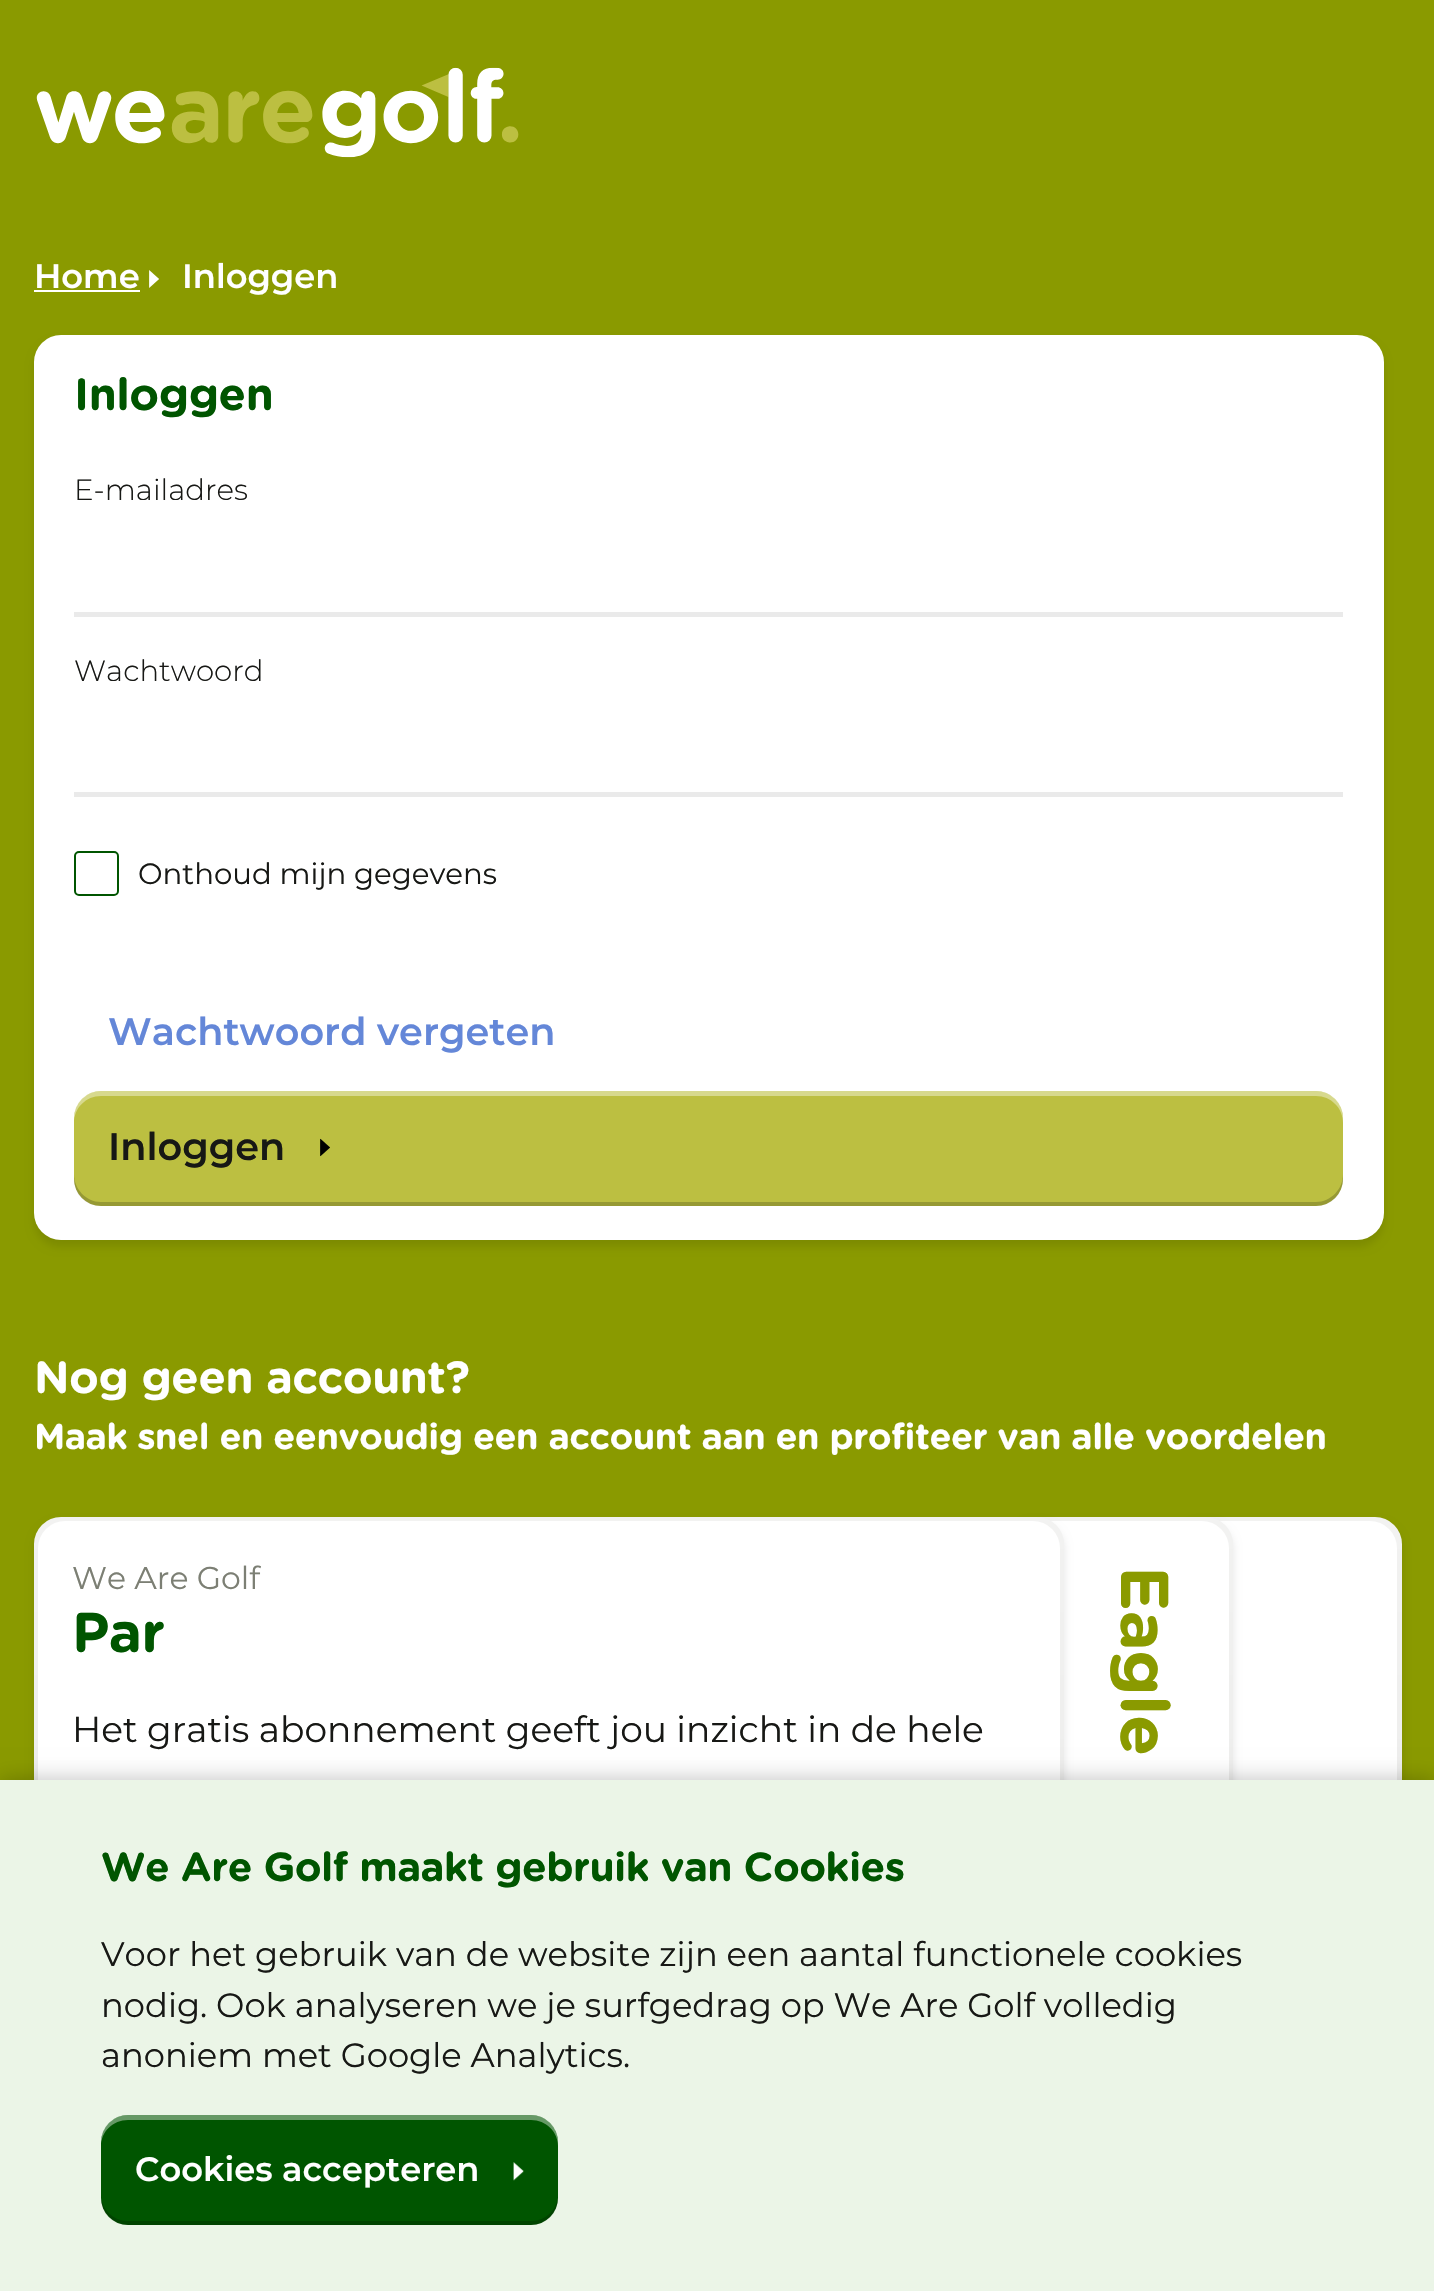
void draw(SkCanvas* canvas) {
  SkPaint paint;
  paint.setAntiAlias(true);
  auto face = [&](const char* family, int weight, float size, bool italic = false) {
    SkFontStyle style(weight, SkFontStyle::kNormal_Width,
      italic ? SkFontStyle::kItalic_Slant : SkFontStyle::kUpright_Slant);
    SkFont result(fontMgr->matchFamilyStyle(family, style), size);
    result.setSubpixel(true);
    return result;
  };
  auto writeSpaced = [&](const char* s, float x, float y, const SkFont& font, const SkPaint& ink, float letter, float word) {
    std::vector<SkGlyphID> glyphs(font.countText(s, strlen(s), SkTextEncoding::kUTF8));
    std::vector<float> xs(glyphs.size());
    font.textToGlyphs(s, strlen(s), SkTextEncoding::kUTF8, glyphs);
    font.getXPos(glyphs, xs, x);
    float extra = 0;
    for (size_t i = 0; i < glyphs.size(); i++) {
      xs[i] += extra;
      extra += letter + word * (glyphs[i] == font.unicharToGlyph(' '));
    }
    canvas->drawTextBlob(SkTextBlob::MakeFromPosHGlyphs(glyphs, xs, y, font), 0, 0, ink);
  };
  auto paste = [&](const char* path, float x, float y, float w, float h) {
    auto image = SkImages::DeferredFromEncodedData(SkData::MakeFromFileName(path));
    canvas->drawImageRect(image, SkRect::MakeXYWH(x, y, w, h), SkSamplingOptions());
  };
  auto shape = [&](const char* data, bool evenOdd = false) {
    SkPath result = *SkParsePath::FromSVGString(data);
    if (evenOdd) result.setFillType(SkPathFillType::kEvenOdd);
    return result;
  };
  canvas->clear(0xff8a9a00);
  paste("img/1.png", 36, 67, 483, 91);
  paint.setColor(0xffffffff);
  canvas->drawRect(SkRect::MakeXYWH(34, 290, 106, 2), paint);
  paste("img/2.png", 149, 270, 10, 18);
  paint.setColor(0x1a000000);
  paint.setMaskFilter(SkMaskFilter::MakeBlur(kNormal_SkBlurStyle, 4.5f));
  canvas->drawRoundRect(SkRect::MakeXYWH(34, 342, 1350, 905), 27, 27, paint);
  paint.setMaskFilter(nullptr);
  paint.setColor(0xffffffff);
  canvas->drawRoundRect(SkRect::MakeXYWH(34, 335, 1350, 905), 27, 27, paint);
  paint.setColor(0xffeaeaea);
  canvas->drawRect(SkRect::MakeXYWH(74, 612, 1269, 5), paint);
  canvas->drawRect(SkRect::MakeXYWH(74, 792, 1269, 5), paint);
  paint.setStroke(true);
  paint.setStrokeWidth(2);
  paint.setColor(0xff005500);
  canvas->drawRoundRect(SkRect::MakeXYWH(75, 852, 43, 43), 4, 4, paint);
  paint.setStroke(false);
  paint.setColor(0xffbcbf41);
  canvas->drawRoundRect(SkRect::MakeXYWH(74, 1091, 1269, 115), 27, 27, paint);
  paint.setColor(0x66ffffff);
  canvas->drawPath(shape("M101 1096H1316C1331 1096 1343 1108 1343 1123V1118C1343 1103 1331 1091 1316 1091H101C86 1091 74 1103 74 1118V1123C74 1108 86 1096 101 1096Z"), paint);
  paint.setColor(0x33000000);
  canvas->drawPath(shape("M74 1174V1179C74 1194 86 1206 101 1206H1316C1331 1206 1343 1194 1343 1179V1174C1343 1189 1331 1202 1316 1202H101C86 1202 74 1189 74 1174Z"), paint);
  paste("img/3.png", 320, 1138, 10, 19);
  paint.setColor(0x1a000000);
  paint.setMaskFilter(SkMaskFilter::MakeBlur(kNormal_SkBlurStyle, 4.5f));
  canvas->drawRoundRect(SkRect::MakeXYWH(1177, 1523, 225, 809), 27, 27, paint);
  paint.setMaskFilter(nullptr);
  {
    const SkColor colors[] = {0xfff2f2f1, 0xffe4e4e3};
    const float stops[] = {0, 1};
    const SkPoint ends[] = {{1289, 1517}, {1289, 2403}};
    paint.setShader(SkGradientShader::MakeLinear(ends, colors, stops, 2, SkTileMode::kClamp));
    paint.setAlpha(255);
  }
  canvas->drawRoundRect(SkRect::MakeXYWH(1177, 1517, 225, 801), 27, 27, paint);
  paint.setShader(nullptr);
  paint.setColor(0xffffffff);
  canvas->drawRoundRect(SkRect::MakeXYWH(1181, 1521, 216, 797), 27, 27, paint);
  paint.setColor(0x1a000000);
  paint.setMaskFilter(SkMaskFilter::MakeBlur(kNormal_SkBlurStyle, 4.5f));
  canvas->drawRoundRect(SkRect::MakeXYWH(1008, 1523, 225, 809), 27, 27, paint);
  paint.setMaskFilter(nullptr);
  {
    const SkColor colors[] = {0xfff2f2f1, 0xffe4e4e3};
    const float stops[] = {0, 1};
    const SkPoint ends[] = {{1121, 1517}, {1121, 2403}};
    paint.setShader(SkGradientShader::MakeLinear(ends, colors, stops, 2, SkTileMode::kClamp));
    paint.setAlpha(255);
  }
  canvas->drawRoundRect(SkRect::MakeXYWH(1008, 1517, 225, 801), 27, 27, paint);
  paint.setShader(nullptr);
  paint.setColor(0xffffffff);
  canvas->drawRoundRect(SkRect::MakeXYWH(1013, 1521, 216, 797), 27, 27, paint);
  paint.setColor(0x1a000000);
  paint.setMaskFilter(SkMaskFilter::MakeBlur(kNormal_SkBlurStyle, 4.5f));
  canvas->drawRoundRect(SkRect::MakeXYWH(34, 1523, 1030, 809), 27, 27, paint);
  paint.setMaskFilter(nullptr);
  {
    const SkColor colors[] = {0xfff2f2f1, 0xffe4e4e3};
    const float stops[] = {0, 1};
    const SkPoint ends[] = {{549, 1517}, {549, 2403}};
    paint.setShader(SkGradientShader::MakeLinear(ends, colors, stops, 2, SkTileMode::kClamp));
    paint.setAlpha(255);
  }
  canvas->drawRoundRect(SkRect::MakeXYWH(34, 1517, 1030, 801), 27, 27, paint);
  paint.setShader(nullptr);
  paint.setColor(0xffffffff);
  canvas->drawRoundRect(SkRect::MakeXYWH(38, 1521, 1022, 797), 27, 27, paint);
  paint.setColor(0x40000000);
  paint.setMaskFilter(SkMaskFilter::MakeBlur(kNormal_SkBlurStyle, 11));
  canvas->drawRect(SkRect::MakeXYWH(0, 1780, 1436, 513), paint);
  paint.setMaskFilter(nullptr);
  paint.setColor(0xffebf5e7);
  canvas->drawRect(SkRect::MakeXYWH(0, 1780, 1434, 511), paint);
  paint.setColor(0xff005500);
  canvas->drawRoundRect(SkRect::MakeXYWH(101, 2115, 457, 110), 27, 27, paint);
  paint.setColor(0x66ffffff);
  canvas->drawPath(shape("M128 2120H531C546 2120 558 2132 558 2146V2142C558 2127 546 2115 531 2115H128C113 2115 101 2127 101 2142V2146C101 2132 113 2120 128 2120Z"), paint);
  paint.setColor(0x33000000);
  canvas->drawPath(shape("M101 2194V2198C101 2213 113 2225 128 2225H531C546 2225 558 2213 558 2198V2194C558 2209 546 2221 531 2221H128C113 2221 101 2209 101 2194Z"), paint);
  paste("img/4.png", 513, 2162, 11, 19);
  auto f0 = face("Montserrat", 600, 33.75f);
  paint.setColor(0xffffffff);
  canvas->drawString("Home", 34, 288, f0, paint);
  canvas->drawString("Inloggen", 182, 288, f0, paint);
  auto f1 = face("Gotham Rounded", 700, 45);
  paint.setColor(0xff005500);
  writeSpaced("Inloggen", 74, 410, f1, paint, -0.47f, 0);
  auto f2 = face("Montserrat", 300, 29.25f);
  paint.setColor(0xff171815);
  canvas->drawString("E-mailadres", 74, 500, f2, paint);
  canvas->drawString("Wachtwoord", 74, 681, f2, paint);
  auto f3 = face("Montserrat", 400, 29.25f);
  canvas->drawString("Onthoud mijn gegevens", 138, 884, f3, paint);
  auto f4 = face("Montserrat", 600, 38.25f);
  paint.setColor(0xff6487d8);
  canvas->drawString("Wachtwoord vergeten", 108, 1045, f4, paint);
  paint.setColor(0xff171815);
  canvas->drawString("Inloggen", 108, 1160, f4, paint);
  paint.setColor(0xffffffff);
  writeSpaced("Nog geen account?", 34, 1393, f1, paint, -0.47f, 0);
  auto f5 = face("Gotham Rounded", 700, 36);
  writeSpaced("Maak snel en eenvoudig een account aan en profiteer van alle voordelen", 34, 1449, f5, paint, -0.47f, 0);
  auto f6 = face("Montserrat", 400, 31.5f);
  paint.setColor(0xff7c7f74);
  canvas->drawString("We Are Golf", 72, 1589, f6, paint);
  auto f7 = face("Gotham Rounded", 700, 56);
  paint.setColor(0xff005500);
  writeSpaced("Par", 72, 1652, f7, paint, -0.55f, 0);
  auto f8 = face("Montserrat", 400, 36);
  paint.setColor(0xff171815);
  canvas->drawString("Het gratis abonnement geeft jou inzicht in de hele", 72, 1742, f8, paint);
  auto f9 = face("Gotham Rounded", 700, 67.5f);
  paint.setColor(0xff8a9a00);
  canvas->save();
  canvas->rotate(90, 1121, 1566);
  writeSpaced("Eagle", 1121, 1566, f9, paint, -0.55f, 0);
  canvas->restore();
  auto f10 = face("Gotham Rounded", 700, 40.5f);
  paint.setColor(0xff005500);
  writeSpaced("We Are Golf maakt gebruik van Cookies", 101, 1881, f10, paint, -0.55f, 0);
  auto f11 = face("Montserrat", 400, 33.75f);
  paint.setColor(0xff171815);
  {
    const struct { const char* s; float x, y; } items[] = {
      {"Voor het gebruik van de website zijn een aantal functionele cookies", 101, 1966},
      {"nodig. Ook analyseren we je surfgedrag op We Are Golf volledig", 101, 2017},
      {"anoniem met Google Analytics.", 101, 2067},
    };
    for (auto [s, x, y] : items) {
      canvas->drawString(s, x, y, f11, paint);
    }
  }
  paint.setColor(0xffffffff);
  canvas->drawString("Cookies accepteren", 135, 2181, f0, paint);
}
